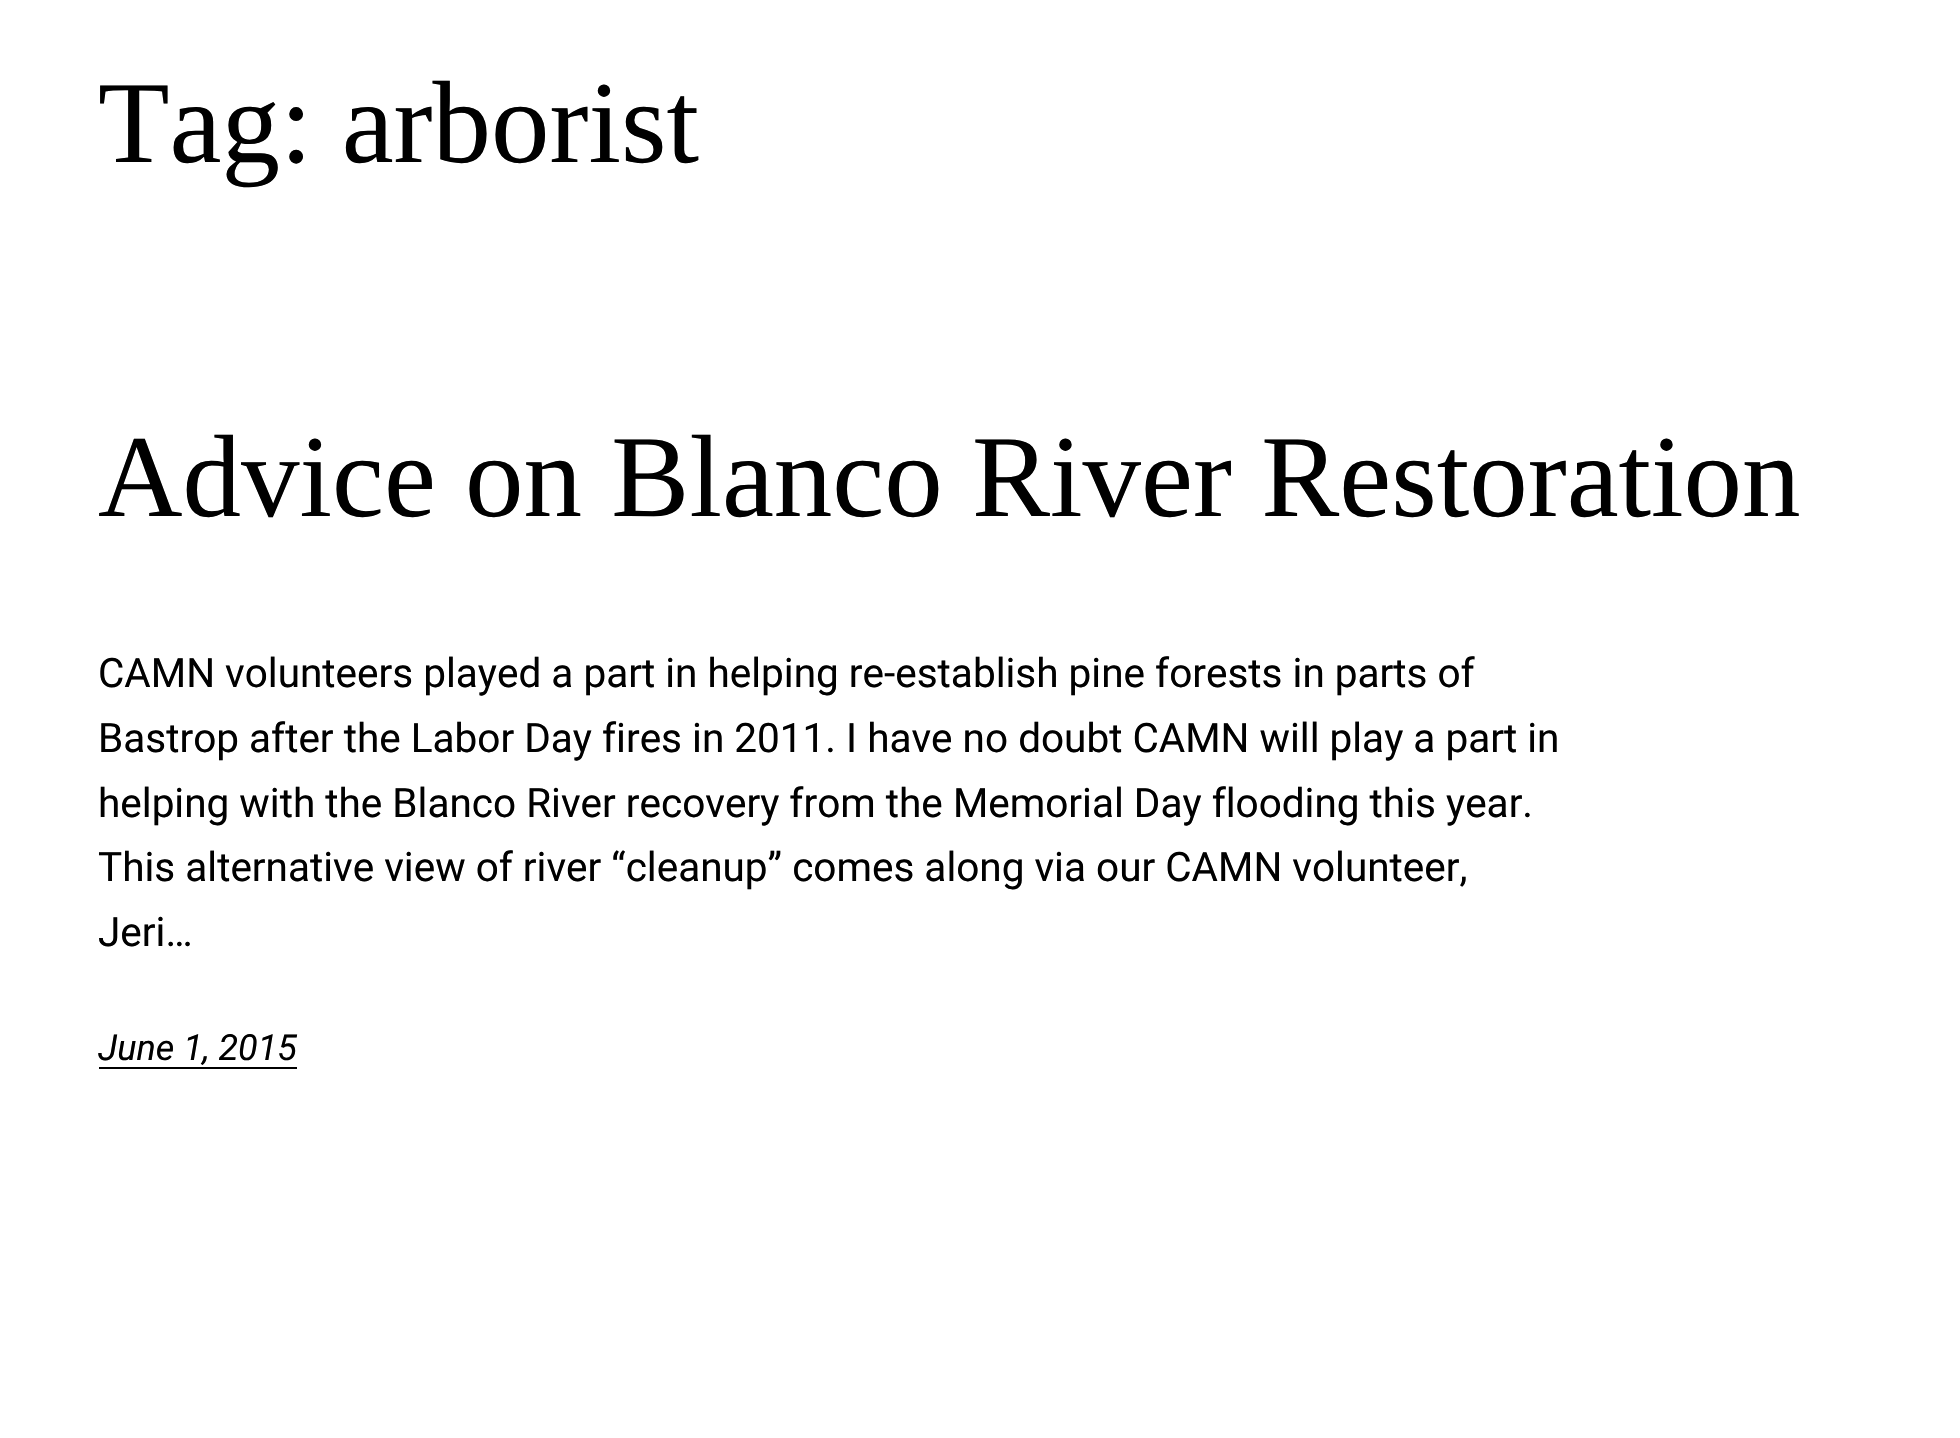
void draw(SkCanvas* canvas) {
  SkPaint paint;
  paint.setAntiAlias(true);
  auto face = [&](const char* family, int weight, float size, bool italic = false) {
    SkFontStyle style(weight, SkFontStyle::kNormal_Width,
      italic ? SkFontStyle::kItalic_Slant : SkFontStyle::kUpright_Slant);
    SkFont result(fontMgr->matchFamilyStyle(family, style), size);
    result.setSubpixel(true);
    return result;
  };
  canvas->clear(0xffffffff);
  paint.setColor(0xff000000);
  canvas->drawRect(SkRect::MakeXYWH(99, 1067, 198, 2), paint);
  auto f0 = face("Liberation Serif", 400, 117);
  canvas->drawString("Tag: arborist", 98, 162, f0, paint);
  canvas->drawString("Advice on Blanco River Restoration", 98, 516, f0, paint);
  auto f1 = face("Roboto", 400, 40.5f);
  {
    const struct { const char* s; float x, y; } items[] = {
      {"CAMN volunteers played a part in helping re-establish pine forests in parts of", 98, 687},
      {"Bastrop after the Labor Day fires in 2011. I have no doubt CAMN will play a part in", 98, 752},
      {"helping with the Blanco River recovery from the Memorial Day flooding this year.", 98, 817},
      {"This alternative view of river “cleanup” comes along via our CAMN volunteer,", 98, 881},
      {"Jeri…", 98, 946},
    };
    for (auto [s, x, y] : items) {
      canvas->drawString(s, x, y, f1, paint);
    }
  }
  auto f2 = face("Roboto", 400, 36, true);
  canvas->drawString("June 1, 2015", 98, 1060, f2, paint);
}
